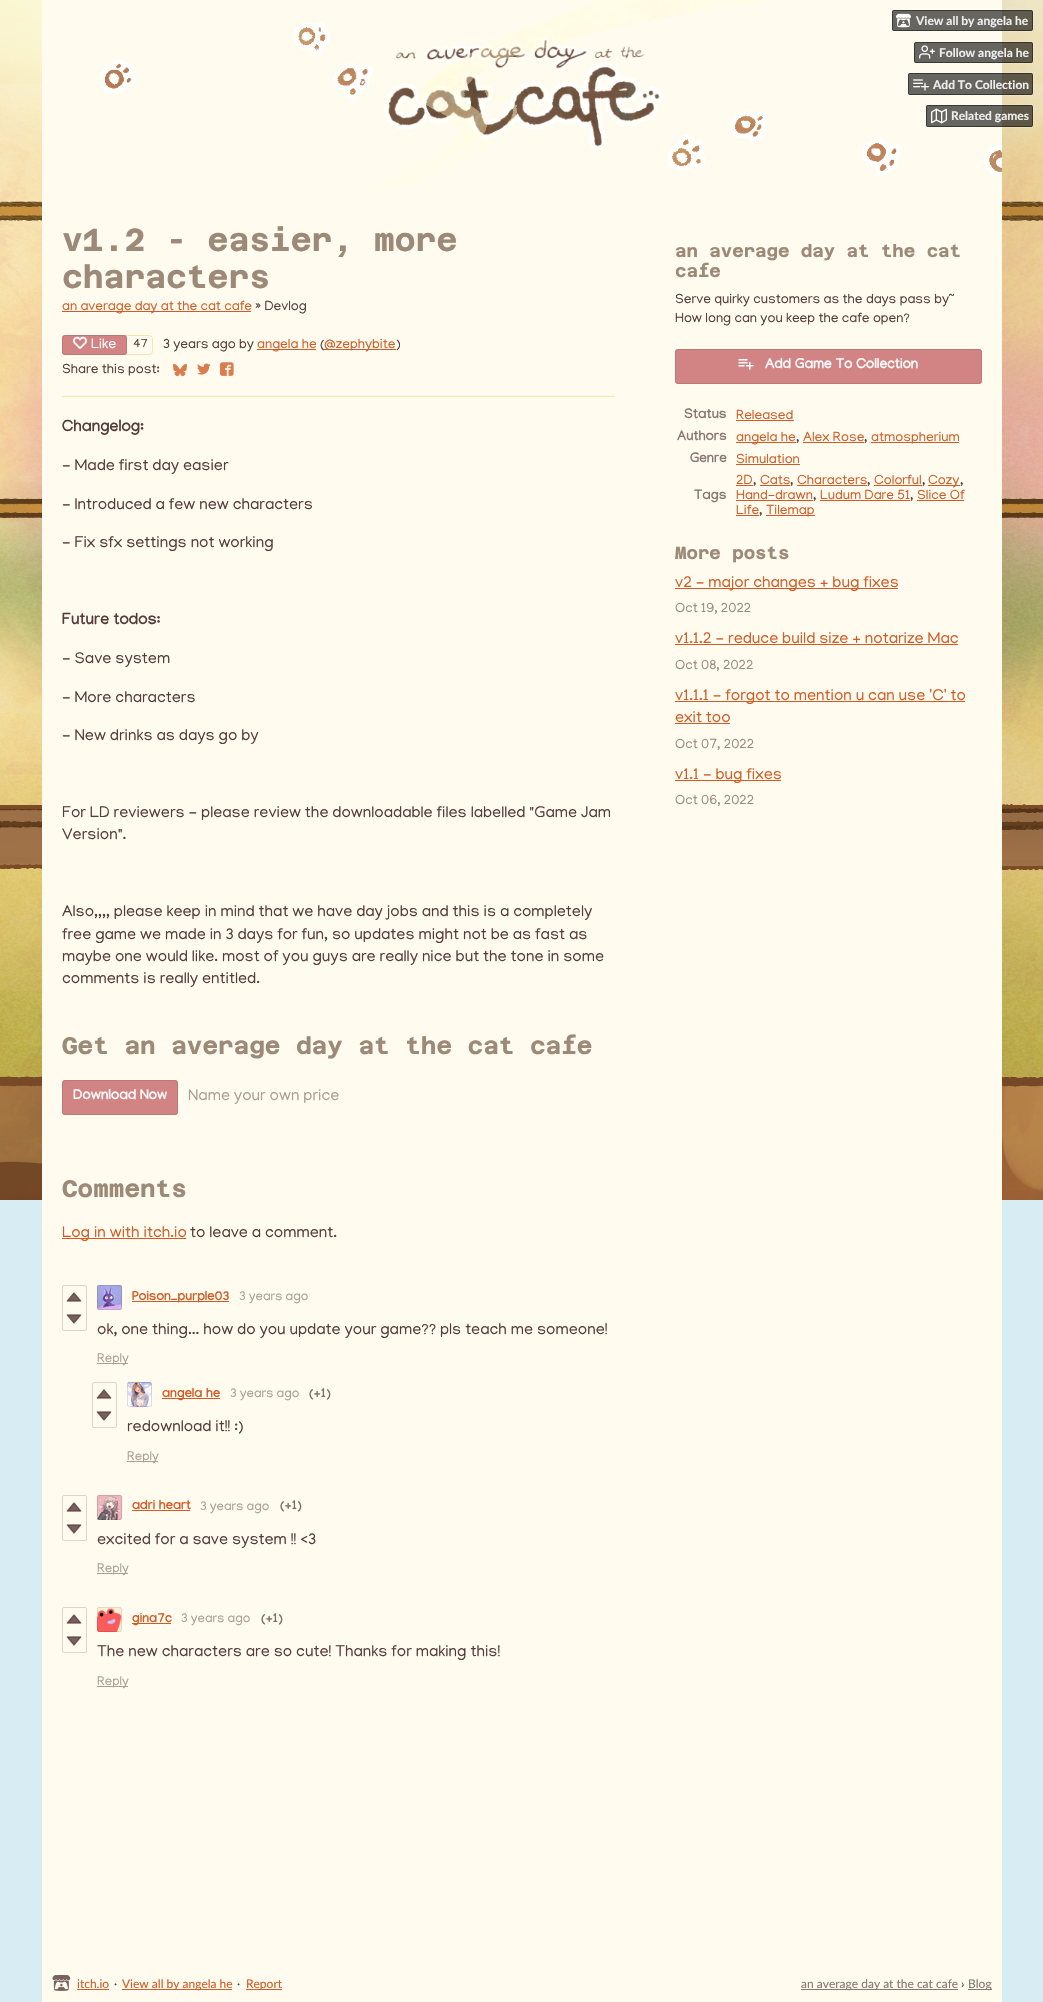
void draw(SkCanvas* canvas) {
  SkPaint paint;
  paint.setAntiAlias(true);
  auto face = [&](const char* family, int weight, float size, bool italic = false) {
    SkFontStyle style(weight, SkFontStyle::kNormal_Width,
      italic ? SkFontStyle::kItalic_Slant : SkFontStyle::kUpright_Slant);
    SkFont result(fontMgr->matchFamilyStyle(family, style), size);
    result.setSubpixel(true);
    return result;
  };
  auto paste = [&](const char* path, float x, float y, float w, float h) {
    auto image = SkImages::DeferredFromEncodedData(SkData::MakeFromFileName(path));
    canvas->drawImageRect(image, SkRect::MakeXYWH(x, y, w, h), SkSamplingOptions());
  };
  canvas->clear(0xffd8ecf3);
  paste("img/5.png", 0, 0, 1043, 1200);
  paint.setColor(0xfffffcef);
  canvas->drawRect(SkRect::MakeXYWH(42, 0, 960, 2002), paint);
  paste("img/6.png", 100, 0, 902, 191);
  paint.setStroke(true);
  paint.setStrokeWidth(1);
  paint.setColor(0x33ffffff);
  canvas->drawRoundRect(SkRect::MakeXYWH(891.5f, 9.5f, 142, 22), 2.5f, 2.5f, paint);
  paint.setStroke(false);
  paint.setColor(0x99000000);
  canvas->drawRoundRect(SkRect::MakeXYWH(892, 10, 141, 21), 2, 2, paint);
  paint.setStroke(true);
  paint.setColor(0x800a0a0a);
  canvas->drawRoundRect(SkRect::MakeXYWH(892.5f, 10.5f, 140, 20), 1.5f, 1.5f, paint);
  paste("img/1.png", 896, 13, 15, 15);
  paint.setColor(0x33ffffff);
  canvas->drawRoundRect(SkRect::MakeXYWH(913.5f, 41.5f, 120, 22), 2.5f, 2.5f, paint);
  paint.setStroke(false);
  paint.setColor(0x99000000);
  canvas->drawRoundRect(SkRect::MakeXYWH(914, 42, 119, 21), 2, 2, paint);
  paint.setStroke(true);
  paint.setColor(0x800a0a0a);
  canvas->drawRoundRect(SkRect::MakeXYWH(914.5f, 42.5f, 118, 20), 1.5f, 1.5f, paint);
  paste("img/2.png", 919, 45, 16, 14);
  paint.setColor(0x33ffffff);
  canvas->drawRoundRect(SkRect::MakeXYWH(907.5f, 72.5f, 126, 23), 2.5f, 2.5f, paint);
  paint.setStroke(false);
  paint.setColor(0x99000000);
  canvas->drawRoundRect(SkRect::MakeXYWH(908, 73, 125, 22), 2, 2, paint);
  paint.setStroke(true);
  paint.setColor(0x800a0a0a);
  canvas->drawRoundRect(SkRect::MakeXYWH(908.5f, 73.5f, 124, 21), 1.5f, 1.5f, paint);
  paste("img/3.png", 913, 79, 16, 12);
  paint.setColor(0x33ffffff);
  canvas->drawRoundRect(SkRect::MakeXYWH(925.5f, 104.5f, 108, 23), 2.5f, 2.5f, paint);
  paint.setStroke(false);
  paint.setColor(0x99000000);
  canvas->drawRoundRect(SkRect::MakeXYWH(926, 105, 107, 22), 2, 2, paint);
  paint.setStroke(true);
  paint.setColor(0x800a0a0a);
  canvas->drawRoundRect(SkRect::MakeXYWH(926.5f, 105.5f, 106, 21), 1.5f, 1.5f, paint);
  paste("img/4.png", 931, 108, 16, 16);
  paint.setStroke(false);
  paint.setColor(0xffd15b25);
  canvas->drawRect(SkRect::MakeXYWH(62, 311, 189, 1), paint);
  paint.setStroke(true);
  paint.setColor(0xfff5e7ab);
  canvas->drawRoundRect(SkRect::MakeXYWH(62.5f, 335.5f, 90, 19), 3.5f, 3.5f, paint);
  paint.setStroke(false);
  paint.setColor(0xffd28484);
  canvas->drawRoundRect(SkRect::MakeXYWH(62, 335, 65, 20), 3, 3, paint);
  paint.setStroke(true);
  paint.setColor(0x1a000000);
  canvas->drawRoundRect(SkRect::MakeXYWH(62.5f, 335.5f, 64, 19), 2.5f, 2.5f, paint);
  paste("img/7.png", 73, 336, 14, 13);
  paint.setStroke(false);
  paint.setColor(0xffd15b25);
  canvas->drawRect(SkRect::MakeXYWH(257, 349, 59, 1), paint);
  canvas->drawRect(SkRect::MakeXYWH(324, 349, 72, 1), paint);
  paste("img/8.png", 173, 363, 14, 14);
  paste("img/9.png", 197, 363, 14, 12);
  paste("img/10.png", 220, 362, 14, 14);
  paint.setColor(0xfff5e7ab);
  canvas->drawRect(SkRect::MakeXYWH(62, 396, 553, 1), paint);
  paint.setColor(0xffd28484);
  canvas->drawRoundRect(SkRect::MakeXYWH(62, 1080, 116, 35), 3, 3, paint);
  paint.setStroke(true);
  paint.setColor(0x1a000000);
  canvas->drawRoundRect(SkRect::MakeXYWH(62.5f, 1080.5f, 115, 34), 2.5f, 2.5f, paint);
  paint.setStroke(false);
  paint.setColor(0xffd28484);
  canvas->drawRoundRect(SkRect::MakeXYWH(675, 349, 307, 35), 3, 3, paint);
  paint.setStroke(true);
  paint.setColor(0x1a000000);
  canvas->drawRoundRect(SkRect::MakeXYWH(675.5f, 349.5f, 306, 34), 2.5f, 2.5f, paint);
  paste("img/11.png", 738, 359, 16, 11);
  paint.setStroke(false);
  {
    const struct { float x, y, w, h; SkColor color; } items[] = {
      {736, 420, 58, 1, 0xffd15b25},
      {736, 442, 60, 1, 0xffd15b25},
      {803, 442, 61, 1, 0xffd15b25},
      {871, 442, 88, 1, 0xffd15b25},
      {736, 464, 64, 1, 0xffd15b25},
      {736, 485, 17, 1, 0xffd15b25},
      {760, 485, 30, 1, 0xffd15b25},
      {797, 485, 70, 1, 0xffd15b25},
      {874, 485, 48, 1, 0xffd15b25},
      {928, 485, 32, 1, 0xffd15b25},
      {736, 500, 77, 1, 0xffd15b25},
      {820, 500, 90, 1, 0xffd15b25},
      {917, 500, 47, 1, 0xffd15b25},
      {736, 515, 23, 1, 0xffd15b25},
      {766, 515, 49, 1, 0xffd15b25},
      {675, 588, 223, 1, 0xffd15b25},
      {675, 644, 283, 1, 0xffd15b25},
      {675, 701, 290, 1, 0xffd15b25},
      {675, 723, 55, 1, 0xffd15b25},
      {675, 780, 106, 1, 0xffd15b25},
      {62, 1238, 124, 1, 0xffd15b25},
    };
    for (auto [x, y, w, h, color] : items) {
      paint.setColor(color);
      canvas->drawRect(SkRect::MakeXYWH(x, y, w, h), paint);
    }
  }
  paint.setStroke(true);
  paint.setColor(0xffddd5cb);
  canvas->drawRoundRect(SkRect::MakeXYWH(62.5f, 1285.5f, 24, 45), 1.5f, 1.5f, paint);
  paste("img/12.png", 66, 1292, 16, 10);
  paste("img/13.png", 66, 1314, 16, 10);
  paste("img/14.png", 97, 1285, 25, 25);
  paint.setColor(0x1a000000);
  canvas->drawRoundRect(SkRect::MakeXYWH(97.5f, 1285.5f, 24, 24), 1.5f, 1.5f, paint);
  paint.setStroke(false);
  paint.setColor(0xffd15b25);
  canvas->drawRect(SkRect::MakeXYWH(132, 1301, 97, 1), paint);
  paint.setColor(0xffab9c95);
  canvas->drawRect(SkRect::MakeXYWH(97, 1363, 31, 1), paint);
  paint.setStroke(true);
  paint.setColor(0xffddd5cb);
  canvas->drawRoundRect(SkRect::MakeXYWH(92.5f, 1382.5f, 24, 45), 1.5f, 1.5f, paint);
  paste("img/12.png", 96, 1389, 16, 10);
  paste("img/13.png", 96, 1411, 16, 10);
  paste("img/15.png", 127, 1382, 25, 25);
  paint.setColor(0x1a000000);
  canvas->drawRoundRect(SkRect::MakeXYWH(127.5f, 1382.5f, 24, 24), 1.5f, 1.5f, paint);
  paint.setStroke(false);
  paint.setColor(0xffd15b25);
  canvas->drawRect(SkRect::MakeXYWH(162, 1398, 58, 1), paint);
  paint.setColor(0xffab9c95);
  canvas->drawRect(SkRect::MakeXYWH(127, 1461, 31, 1), paint);
  paint.setStroke(true);
  paint.setColor(0xffddd5cb);
  canvas->drawRoundRect(SkRect::MakeXYWH(62.5f, 1495.5f, 24, 45), 1.5f, 1.5f, paint);
  paste("img/12.png", 66, 1502, 16, 10);
  paste("img/13.png", 66, 1524, 16, 10);
  paste("img/16.png", 97, 1495, 25, 25);
  paint.setColor(0x1a000000);
  canvas->drawRoundRect(SkRect::MakeXYWH(97.5f, 1495.5f, 24, 24), 1.5f, 1.5f, paint);
  paint.setStroke(false);
  paint.setColor(0xffd15b25);
  canvas->drawRect(SkRect::MakeXYWH(132, 1510, 58, 1), paint);
  paint.setColor(0xffab9c95);
  canvas->drawRect(SkRect::MakeXYWH(97, 1573, 31, 1), paint);
  paint.setStroke(true);
  paint.setColor(0xffddd5cb);
  canvas->drawRoundRect(SkRect::MakeXYWH(62.5f, 1607.5f, 24, 45), 1.5f, 1.5f, paint);
  paste("img/12.png", 66, 1614, 16, 10);
  paste("img/13.png", 66, 1636, 16, 10);
  paste("img/17.png", 97, 1607, 25, 25);
  paint.setColor(0x1a000000);
  canvas->drawRoundRect(SkRect::MakeXYWH(97.5f, 1607.5f, 24, 24), 1.5f, 1.5f, paint);
  paint.setStroke(false);
  paint.setColor(0xffd15b25);
  canvas->drawRect(SkRect::MakeXYWH(132, 1623, 39, 1), paint);
  paint.setColor(0xffab9c95);
  canvas->drawRect(SkRect::MakeXYWH(97, 1686, 31, 1), paint);
  paste("img/18.png", 52, 1975, 19, 16);
  {
    const struct { float x, y, w, h; SkColor color; } items[] = {
      {77, 1989, 32, 1, 0xffd15b25},
      {122, 1989, 110, 1, 0xffd15b25},
      {246, 1989, 36, 1, 0xffd15b25},
      {801, 1989, 157, 1, 0xff897571},
      {968, 1989, 24, 1, 0xff897571},
    };
    for (auto [x, y, w, h, color] : items) {
      paint.setColor(color);
      canvas->drawRect(SkRect::MakeXYWH(x, y, w, h), paint);
    }
  }
  auto f0 = face("Lato", 700, 12);
  paint.setColor(0xffeeeeee);
  {
    const struct { const char* s; float x, y; } items[] = {
      {"View all by angela he", 916, 25},
      {"Follow angela he", 939, 57},
      {"Add To Collection", 933, 89},
      {"Related games", 951, 120},
    };
    for (auto [s, x, y] : items) {
      canvas->drawString(s, x, y, f0, paint);
    }
  }
  auto f1 = face("Azeret Mono", 700, 32);
  paint.setColor(0xff9d8978);
  canvas->drawString("v1.2 - easier, more", 62, 251, f1, paint);
  canvas->drawString("characters", 62, 288, f1, paint);
  auto f2 = face("Manjari", 400, 13.6f);
  paint.setColor(0xffd15b25);
  canvas->drawString("an average day at the cat cafe", 62, 310, f2, paint);
  paint.setColor(0xff563b3b);
  canvas->drawString("» Devlog", 255, 310, f2, paint);
  auto f3 = face("Manjari", 400, 14);
  paint.setColor(0xffffffff);
  canvas->drawString("Like", 91, 348, f3, paint);
  auto f4 = face("Manjari", 400, 12);
  paint.setColor(0xff563b3b);
  canvas->drawString("47", 133, 347, f4, paint);
  canvas->drawString("3 years ago by", 163, 348, f2, paint);
  paint.setColor(0xffd15b25);
  canvas->drawString("angela he", 257, 348, f2, paint);
  paint.setColor(0xff563b3b);
  canvas->drawString("(", 320, 348, f2, paint);
  paint.setColor(0xffd15b25);
  canvas->drawString("@zephybite", 324, 348, f2, paint);
  paint.setColor(0xff563b3b);
  canvas->drawString(")", 396, 348, f2, paint);
  canvas->drawString("Share this post:", 62, 373, f2, paint);
  auto f5 = face("Manjari", 700, 16);
  canvas->drawString("Changelog:", 62, 431, f5, paint);
  auto f6 = face("Manjari", 400, 16);
  {
    const struct { const char* s; float x, y; } items[] = {
      {"- Made first day easier", 62, 470},
      {"- Introduced a few new characters", 62, 509},
      {"- Fix sfx settings not working", 62, 547},
    };
    for (auto [s, x, y] : items) {
      canvas->drawString(s, x, y, f6, paint);
    }
  }
  canvas->drawString("Future todos:", 62, 624, f5, paint);
  {
    const struct { const char* s; float x, y; } items[] = {
      {"- Save system", 62, 663},
      {"- More characters", 62, 702},
      {"- New drinks as days go by", 62, 740},
      {"For LD reviewers - please review the downloadable files labelled \"Game Jam", 62, 817},
      {"Version\".", 62, 839},
      {"Also,,,, please keep in mind that we have day jobs and this is a completely", 62, 916},
      {"free game we made in 3 days for fun, so updates might not be as fast as", 62, 939},
      {"maybe one would like. most of you guys are really nice but the tone in some", 62, 961},
      {"comments is really entitled.", 62, 983},
    };
    for (auto [s, x, y] : items) {
      canvas->drawString(s, x, y, f6, paint);
    }
  }
  auto f7 = face("Azeret Mono", 700, 24);
  paint.setColor(0xff9d8978);
  canvas->drawString("Get an average day at the cat cafe", 62, 1054, f7, paint);
  auto f8 = face("Manjari", 700, 14);
  paint.setColor(0xffffffff);
  canvas->drawString("Download Now", 73, 1099, f8, paint);
  paint.setColor(0xffab9c95);
  canvas->drawString("Name your own price", 188, 1100, f6, paint);
  auto f9 = face("Azeret Mono", 700, 17.6f);
  paint.setColor(0xff9d8978);
  canvas->drawString("an average day at the cat", 675, 257, f9, paint);
  canvas->drawString("cafe", 675, 277, f9, paint);
  paint.setColor(0xff563b3b);
  canvas->drawString("Serve quirky customers as the days pass by~", 675, 303, f2, paint);
  canvas->drawString("How long can you keep the cafe open?", 675, 322, f2, paint);
  paint.setColor(0xffffffff);
  canvas->drawString("Add Game To Collection", 765, 368, f8, paint);
  auto f10 = face("Manjari", 700, 13.6f);
  paint.setColor(0xff897571);
  canvas->drawString("Status", 684, 418, f10, paint);
  paint.setColor(0xffd15b25);
  canvas->drawString("Released", 736, 419, f2, paint);
  paint.setColor(0xff897571);
  canvas->drawString("Authors", 677, 440, f10, paint);
  paint.setColor(0xffd15b25);
  canvas->drawString("angela he", 736, 441, f2, paint);
  paint.setColor(0xff563b3b);
  canvas->drawString(",", 796, 441, f2, paint);
  paint.setColor(0xffd15b25);
  canvas->drawString("Alex Rose", 803, 441, f2, paint);
  paint.setColor(0xff563b3b);
  canvas->drawString(",", 864, 441, f2, paint);
  paint.setColor(0xffd15b25);
  canvas->drawString("atmospherium", 871, 441, f2, paint);
  paint.setColor(0xff897571);
  canvas->drawString("Genre", 690, 462, f10, paint);
  paint.setColor(0xffd15b25);
  canvas->drawString("Simulation", 736, 463, f2, paint);
  paint.setColor(0xff897571);
  canvas->drawString("Tags", 694, 499, f10, paint);
  paint.setColor(0xffd15b25);
  canvas->drawString("2D", 736, 484, f2, paint);
  paint.setColor(0xff563b3b);
  canvas->drawString(",", 753, 484, f2, paint);
  paint.setColor(0xffd15b25);
  canvas->drawString("Cats", 760, 484, f2, paint);
  paint.setColor(0xff563b3b);
  canvas->drawString(",", 790, 484, f2, paint);
  paint.setColor(0xffd15b25);
  canvas->drawString("Characters", 797, 484, f2, paint);
  paint.setColor(0xff563b3b);
  canvas->drawString(",", 867, 484, f2, paint);
  paint.setColor(0xffd15b25);
  canvas->drawString("Colorful", 874, 484, f2, paint);
  paint.setColor(0xff563b3b);
  canvas->drawString(",", 922, 484, f2, paint);
  paint.setColor(0xffd15b25);
  canvas->drawString("Cozy", 928, 484, f2, paint);
  paint.setColor(0xff563b3b);
  canvas->drawString(",", 960, 484, f2, paint);
  paint.setColor(0xffd15b25);
  canvas->drawString("Hand-drawn", 736, 499, f2, paint);
  paint.setColor(0xff563b3b);
  canvas->drawString(",", 813, 499, f2, paint);
  paint.setColor(0xffd15b25);
  canvas->drawString("Ludum Dare 51", 820, 499, f2, paint);
  paint.setColor(0xff563b3b);
  canvas->drawString(",", 910, 499, f2, paint);
  paint.setColor(0xffd15b25);
  canvas->drawString("Slice Of", 917, 499, f2, paint);
  canvas->drawString("Life", 736, 514, f2, paint);
  paint.setColor(0xff563b3b);
  canvas->drawString(",", 759, 514, f2, paint);
  paint.setColor(0xffd15b25);
  canvas->drawString("Tilemap", 766, 514, f2, paint);
  paint.setColor(0xff9d8978);
  canvas->drawString("More posts", 675, 559, f9, paint);
  paint.setColor(0xffd15b25);
  canvas->drawString("v2 - major changes + bug fixes", 675, 587, f6, paint);
  paint.setColor(0xff9a8883);
  canvas->drawString("Oct 19, 2022", 675, 612, f2, paint);
  paint.setColor(0xffd15b25);
  canvas->drawString("v1.1.2 - reduce build size + notarize Mac", 675, 643, f6, paint);
  paint.setColor(0xff9a8883);
  canvas->drawString("Oct 08, 2022", 675, 669, f2, paint);
  paint.setColor(0xffd15b25);
  canvas->drawString("v1.1.1 - forgot to mention u can use 'C' to", 675, 700, f6, paint);
  canvas->drawString("exit too", 675, 722, f6, paint);
  paint.setColor(0xff9a8883);
  canvas->drawString("Oct 07, 2022", 675, 748, f2, paint);
  paint.setColor(0xffd15b25);
  canvas->drawString("v1.1 - bug fixes", 675, 779, f6, paint);
  paint.setColor(0xff9a8883);
  canvas->drawString("Oct 06, 2022", 675, 804, f2, paint);
  paint.setColor(0xff9d8978);
  canvas->drawString("Comments", 62, 1197, f7, paint);
  paint.setColor(0xffd15b25);
  canvas->drawString("Log in with itch.io", 62, 1237, f6, paint);
  paint.setColor(0xff563b3b);
  canvas->drawString("to leave a comment.", 190, 1237, f6, paint);
  auto f11 = face("Manjari", 700, 13);
  paint.setColor(0xffd15b25);
  canvas->drawString("Poison_purple03", 132, 1300, f11, paint);
  auto f12 = face("Manjari", 400, 13);
  paint.setColor(0xffab9c95);
  canvas->drawString("3 years ago", 239, 1300, f12, paint);
  paint.setColor(0xff563b3b);
  canvas->drawString("ok, one thing... how do you update your game?\077 pls teach me someone!", 97, 1334, f6, paint);
  paint.setColor(0xffab9c95);
  canvas->drawString("Reply", 97, 1362, f12, paint);
  paint.setColor(0xffd15b25);
  canvas->drawString("angela he", 162, 1397, f11, paint);
  paint.setColor(0xffab9c95);
  canvas->drawString("3 years ago", 230, 1397, f12, paint);
  paint.setColor(0xff806b68);
  canvas->drawString("(+1)", 309, 1397, f11, paint);
  paint.setColor(0xff563b3b);
  canvas->drawString("redownload it!! :)", 127, 1431, f6, paint);
  paint.setColor(0xffab9c95);
  canvas->drawString("Reply", 127, 1460, f12, paint);
  paint.setColor(0xffd15b25);
  canvas->drawString("adri heart", 132, 1509, f11, paint);
  paint.setColor(0xffab9c95);
  canvas->drawString("3 years ago", 200, 1510, f12, paint);
  paint.setColor(0xff806b68);
  canvas->drawString("(+1)", 280, 1509, f11, paint);
  paint.setColor(0xff563b3b);
  canvas->drawString("excited for a save system !! <3", 97, 1544, f6, paint);
  paint.setColor(0xffab9c95);
  canvas->drawString("Reply", 97, 1572, f12, paint);
  paint.setColor(0xffd15b25);
  canvas->drawString("gina7c", 132, 1622, f11, paint);
  paint.setColor(0xffab9c95);
  canvas->drawString("3 years ago", 181, 1622, f12, paint);
  paint.setColor(0xff806b68);
  canvas->drawString("(+1)", 261, 1622, f11, paint);
  paint.setColor(0xff563b3b);
  canvas->drawString("The new characters are so cute! Thanks for making this!", 97, 1656, f6, paint);
  paint.setColor(0xffab9c95);
  canvas->drawString("Reply", 97, 1685, f12, paint);
  auto f13 = face("Lato", 400, 12);
  paint.setColor(0xffd15b25);
  canvas->drawString("itch.io", 77, 1988, f13, paint);
  paint.setColor(0xff563b3b);
  canvas->drawString("·", 114, 1988, f13, paint);
  paint.setColor(0xffd15b25);
  canvas->drawString("View all by angela he", 122, 1988, f13, paint);
  paint.setColor(0xff563b3b);
  canvas->drawString("·", 237, 1988, f13, paint);
  paint.setColor(0xffd15b25);
  canvas->drawString("Report", 246, 1988, f13, paint);
  paint.setColor(0xff897571);
  canvas->drawString("an average day at the cat cafe", 801, 1988, f13, paint);
  paint.setColor(0xff563b3b);
  canvas->drawString("›", 961, 1988, f13, paint);
  paint.setColor(0xff897571);
  canvas->drawString("Blog", 968, 1988, f13, paint);
}
